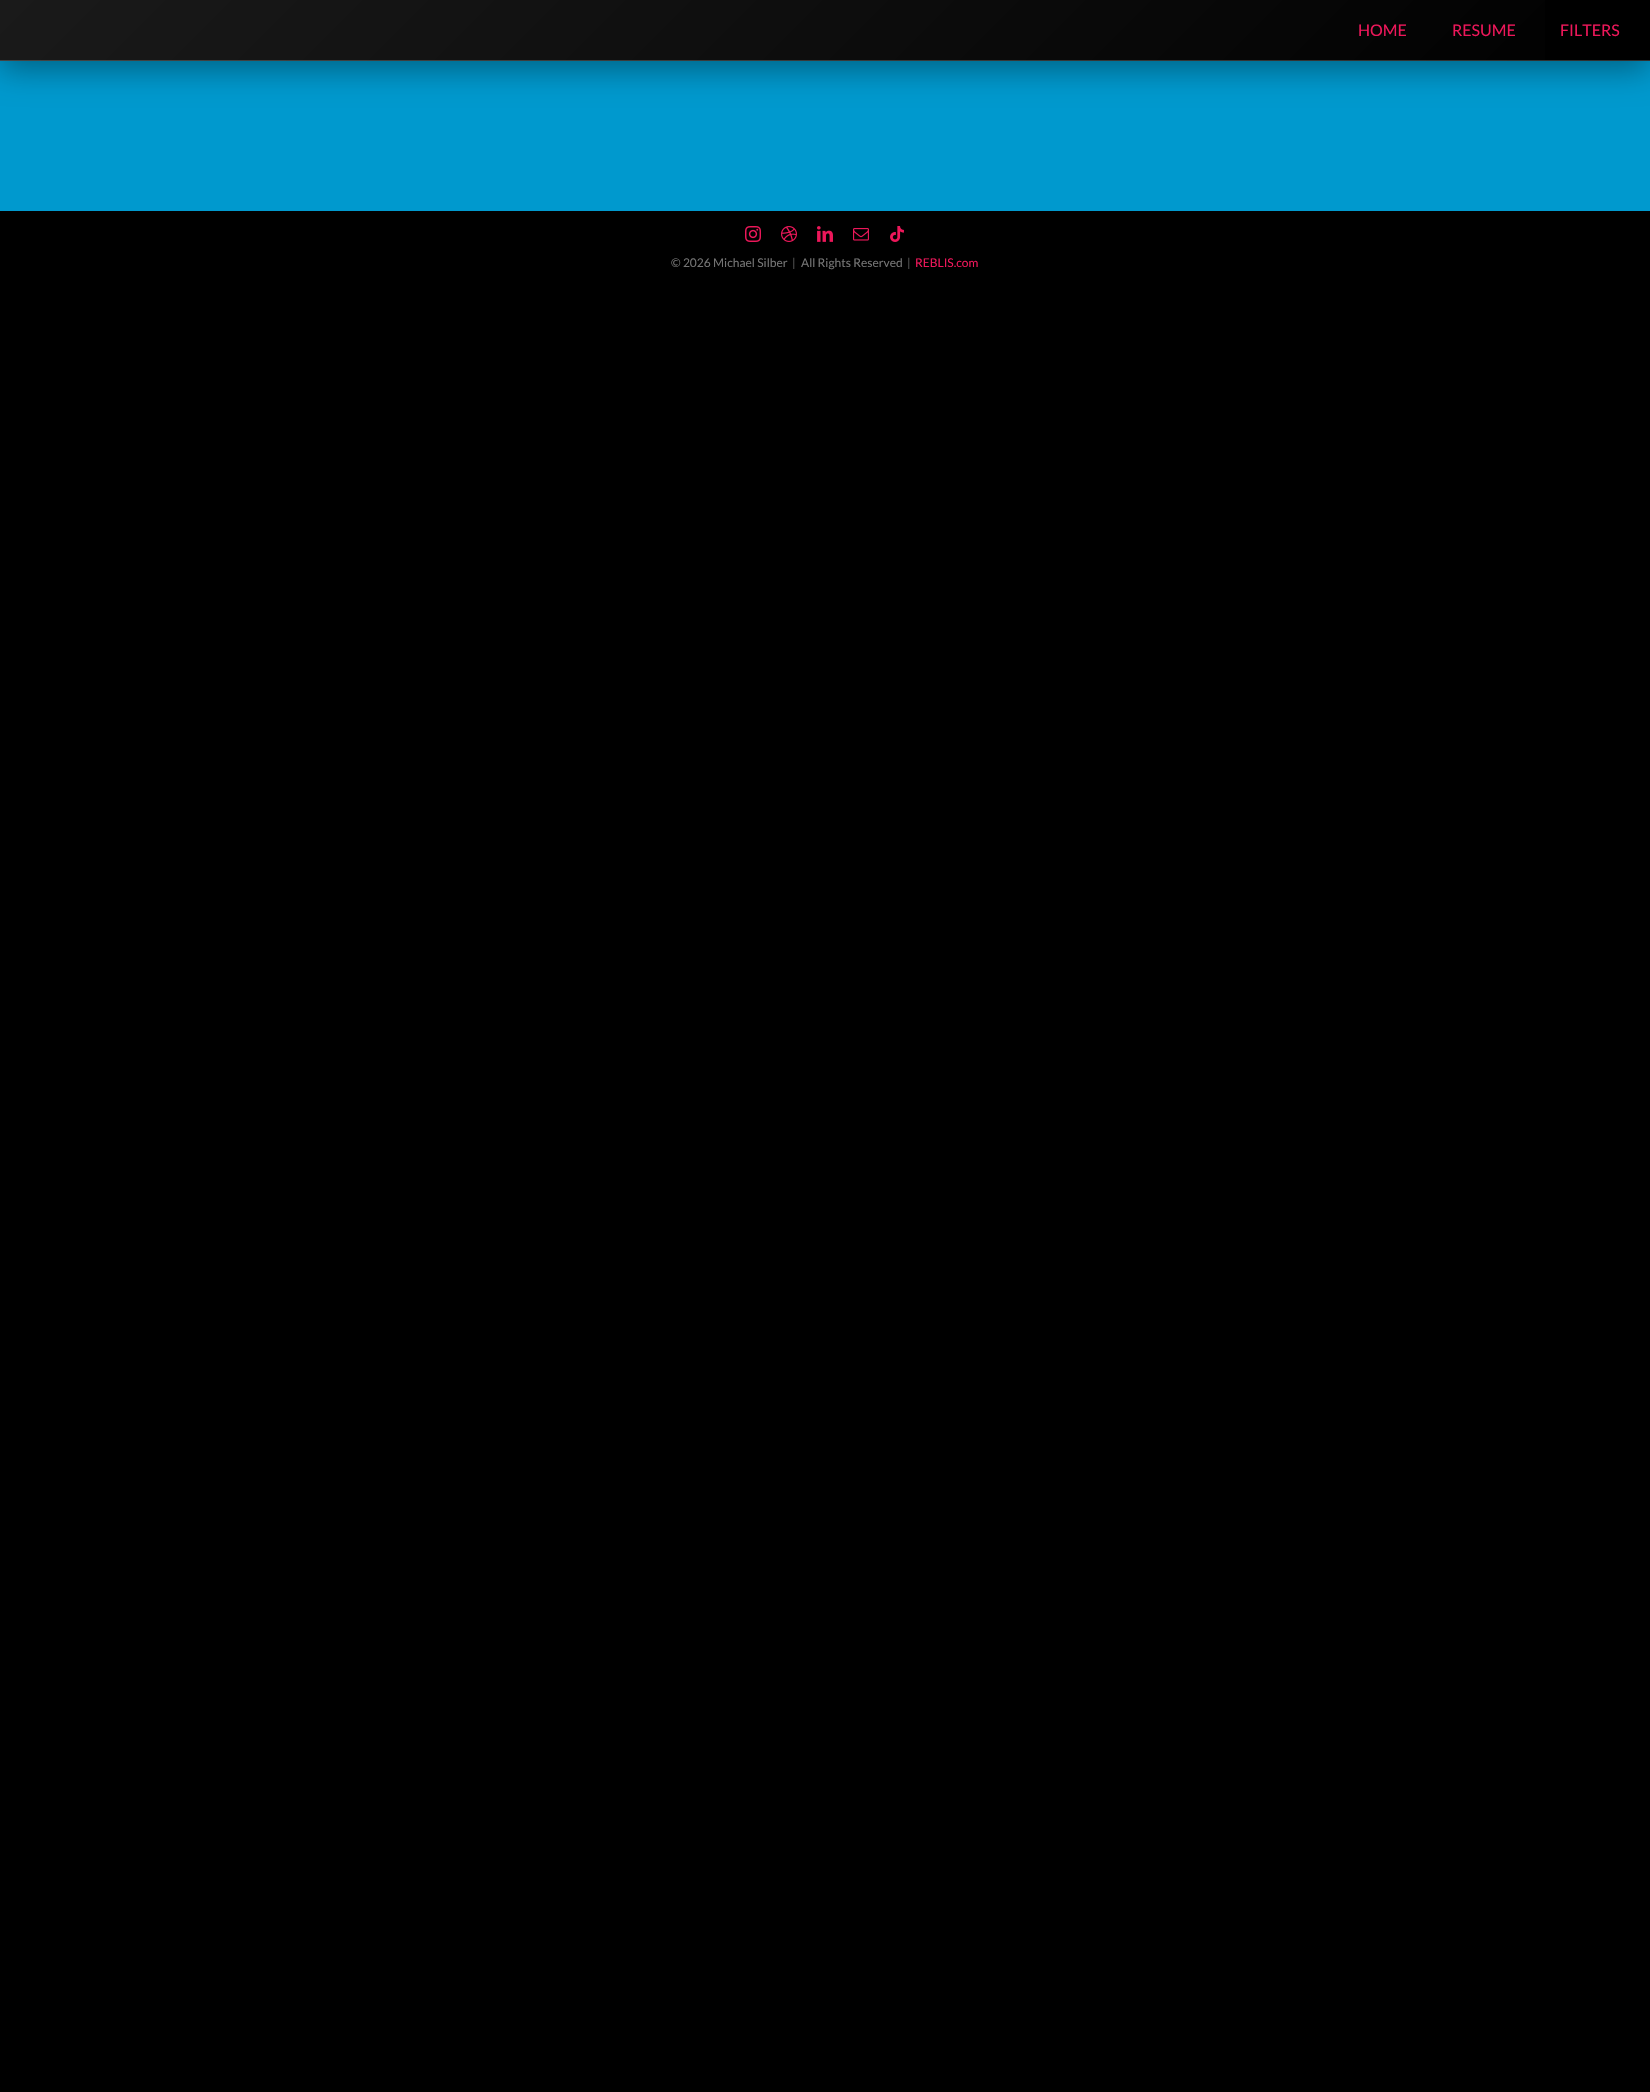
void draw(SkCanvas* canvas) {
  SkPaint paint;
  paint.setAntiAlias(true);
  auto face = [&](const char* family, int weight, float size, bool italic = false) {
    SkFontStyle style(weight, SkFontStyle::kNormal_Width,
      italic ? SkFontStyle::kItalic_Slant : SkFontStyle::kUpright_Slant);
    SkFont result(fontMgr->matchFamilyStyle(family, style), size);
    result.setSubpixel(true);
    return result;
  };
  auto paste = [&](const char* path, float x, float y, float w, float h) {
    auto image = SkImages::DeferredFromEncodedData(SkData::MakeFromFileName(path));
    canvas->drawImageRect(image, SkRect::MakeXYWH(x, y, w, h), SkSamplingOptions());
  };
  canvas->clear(0xff000000);
  paint.setColor(0xff0099ce);
  canvas->drawRect(SkRect::MakeXYWH(0, 61, 1650, 150), paint);
  paint.setColor(0x5e000000);
  paint.setMaskFilter(SkMaskFilter::MakeBlur(kNormal_SkBlurStyle, 16));
  canvas->drawRect(SkRect::MakeXYWH(0, 8, 1650, 61), paint);
  paint.setMaskFilter(nullptr);
  {
    const SkColor colors[] = {0xff1a1a1a, 0xff000000};
    const float stops[] = {0, 1};
    const SkPoint ends[] = {{398, -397}, {1253, 457}};
    paint.setShader(SkGradientShader::MakeLinear(ends, colors, stops, 2, SkTileMode::kClamp));
    paint.setAlpha(255);
  }
  canvas->drawRect(SkRect::MakeXYWH(0, 0, 1545, 60), paint);
  {
    const SkColor colors[] = {0xff434343, 0xff2e2e2e};
    const float stops[] = {0, 1};
    const SkPoint ends[] = {{398, -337}, {1253, 518}};
    paint.setShader(SkGradientShader::MakeLinear(ends, colors, stops, 2, SkTileMode::kClamp));
    paint.setAlpha(255);
  }
  canvas->drawRect(SkRect::MakeXYWH(0, 60, 1650, 1), paint);
  paste("img/1.png", 745, 226, 16, 16);
  paste("img/2.png", 781, 226, 16, 16);
  paste("img/3.png", 817, 226, 16, 16);
  paste("img/4.png", 853, 228, 16, 13);
  paste("img/5.png", 890, 226, 14, 16);
  auto f0 = face("Lato", 400, 16);
  paint.setShader(nullptr);
  paint.setColor(0xffed175a);
  {
    const struct { const char* s; float x, y; } items[] = {
      {"HOME", 1358, 36},
      {"RESUME", 1452, 36},
      {"FILTERS", 1560, 36},
    };
    for (auto [s, x, y] : items) {
      canvas->drawString(s, x, y, f0, paint);
    }
  }
  auto f1 = face("Lato", 400, 12);
  paint.setColor(0xff747474);
  canvas->drawString("© 2026 Michael Silber", 671, 267, f1, paint);
  paint.setColor(0xff555555);
  canvas->drawString("|", 792, 267, f1, paint);
  paint.setColor(0xff747474);
  canvas->drawString("All Rights Reserved", 801, 267, f1, paint);
  paint.setColor(0xff555555);
  canvas->drawString("|", 907, 267, f1, paint);
  paint.setColor(0xffed175a);
  canvas->drawString("REBLIS.com", 915, 267, f1, paint);
}
